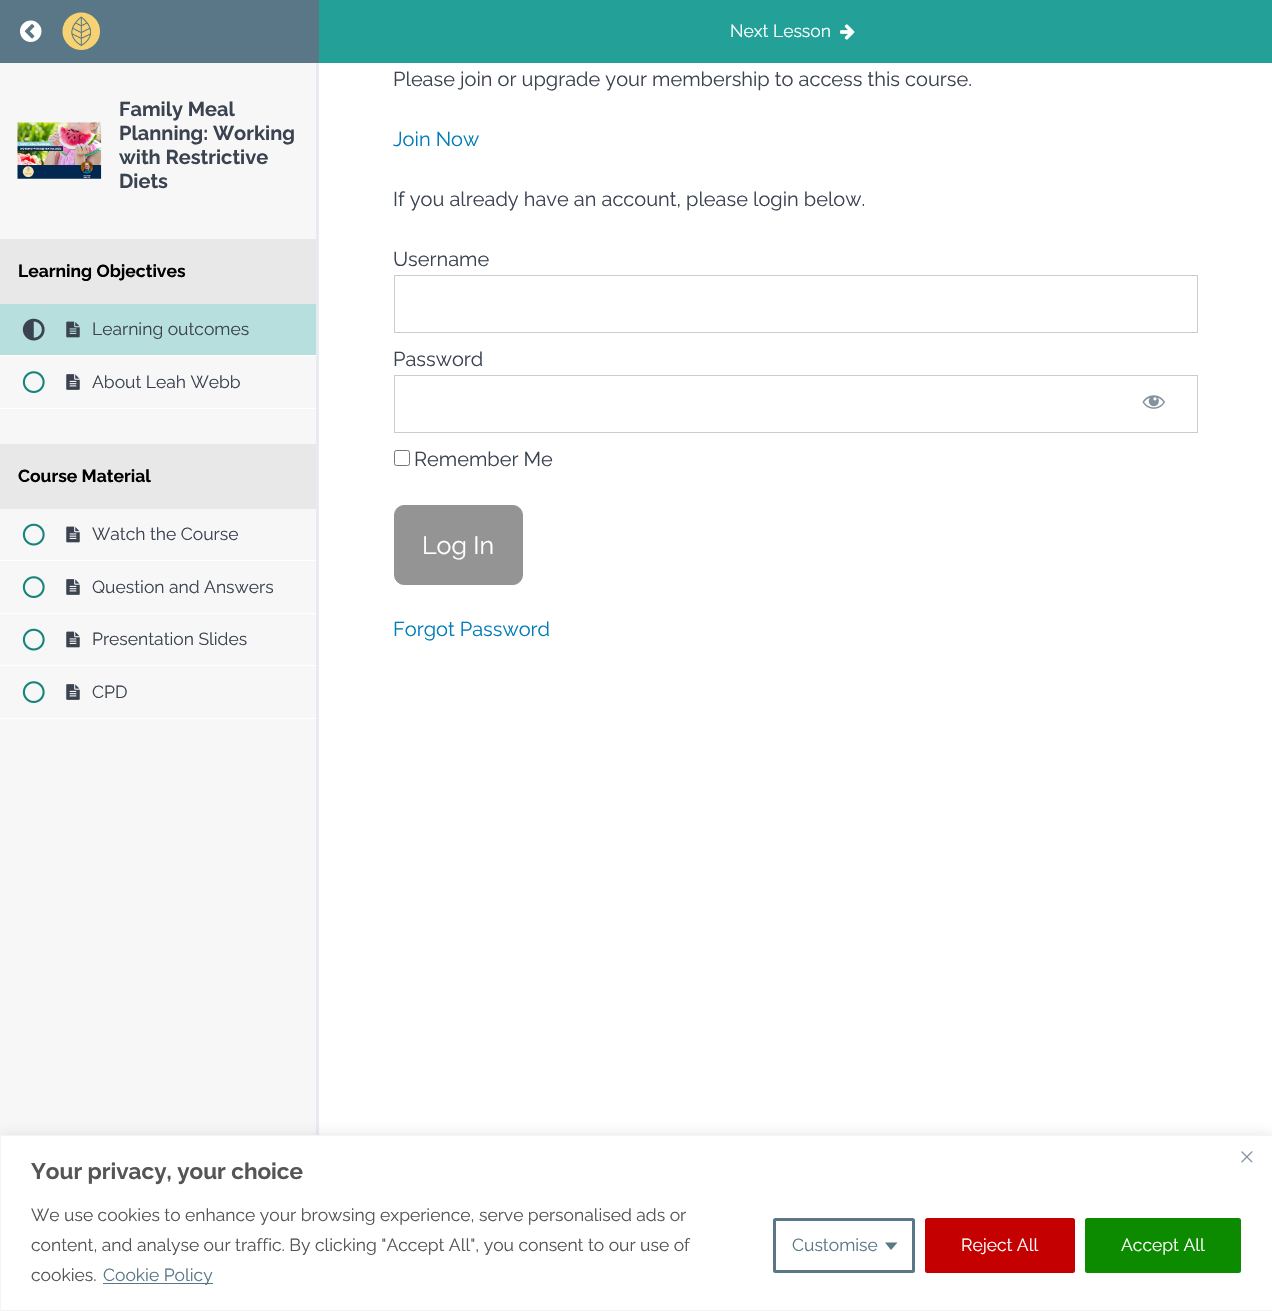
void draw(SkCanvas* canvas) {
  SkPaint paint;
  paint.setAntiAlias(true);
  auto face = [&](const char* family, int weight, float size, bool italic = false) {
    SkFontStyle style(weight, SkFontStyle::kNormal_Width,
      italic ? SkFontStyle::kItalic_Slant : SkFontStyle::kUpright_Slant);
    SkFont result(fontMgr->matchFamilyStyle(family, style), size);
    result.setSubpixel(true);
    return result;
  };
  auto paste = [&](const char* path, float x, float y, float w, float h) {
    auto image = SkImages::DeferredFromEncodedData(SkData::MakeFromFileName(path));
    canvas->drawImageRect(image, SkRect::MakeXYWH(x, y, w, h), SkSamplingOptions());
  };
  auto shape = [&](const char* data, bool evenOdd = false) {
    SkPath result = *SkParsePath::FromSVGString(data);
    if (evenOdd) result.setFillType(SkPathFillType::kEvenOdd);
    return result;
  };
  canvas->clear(0xffffffff);
  paint.setColor(0xff597786);
  canvas->drawRect(SkRect::MakeXYWH(0, 0, 319, 63), paint);
  paste("img/1.png", 20, 20, 22, 22);
  paste("img/2.png", 62, 12, 38, 38);
  paint.setColor(0xff23a198);
  canvas->drawRect(SkRect::MakeXYWH(319, 0, 953, 63), paint);
  paste("img/3.png", 840, 24, 15, 16);
  paint.setColor(0xfff7f7f7);
  canvas->drawRect(SkRect::MakeXYWH(0, 63, 316, 1072), paint);
  paint.setColor(0xffe8ebef);
  canvas->drawRect(SkRect::MakeXYWH(316, 63, 3, 1072), paint);
  paste("img/4.png", 17, 122, 85, 57);
  {
    const struct { float x, y, w, h; SkColor color; } items[] = {
      {0, 239, 316, 65, 0xffe8e8e8},
      {0, 304, 316, 51, 0xffb6dfdd},
      {0, 355, 316, 1, 0xffffffff},
    };
    for (auto [x, y, w, h, color] : items) {
      paint.setColor(color);
      canvas->drawRect(SkRect::MakeXYWH(x, y, w, h), paint);
    }
  }
  paste("img/5.png", 22, 318, 23, 23);
  paste("img/6.png", 66, 321, 14, 17);
  canvas->drawRect(SkRect::MakeXYWH(0, 408, 316, 1), paint);
  paste("img/7.png", 22, 371, 23, 22);
  paste("img/8.png", 66, 374, 14, 16);
  paint.setColor(0xffe8e8e8);
  canvas->drawRect(SkRect::MakeXYWH(0, 444, 316, 65), paint);
  paint.setColor(0xffffffff);
  canvas->drawRect(SkRect::MakeXYWH(0, 560, 316, 1), paint);
  paste("img/9.png", 22, 523, 23, 23);
  paste("img/10.png", 66, 526, 14, 17);
  canvas->drawRect(SkRect::MakeXYWH(0, 613, 316, 1), paint);
  paste("img/7.png", 22, 576, 23, 22);
  paste("img/8.png", 66, 579, 14, 16);
  canvas->drawRect(SkRect::MakeXYWH(0, 665, 316, 1), paint);
  paste("img/9.png", 22, 628, 23, 23);
  paste("img/10.png", 66, 631, 14, 17);
  canvas->drawRect(SkRect::MakeXYWH(0, 718, 316, 1), paint);
  paste("img/7.png", 22, 681, 23, 22);
  paste("img/8.png", 66, 684, 14, 16);
  paint.setStroke(true);
  paint.setStrokeWidth(1);
  paint.setColor(0xffcccccc);
  canvas->drawRect(SkRect::MakeXYWH(394.5f, 275.5f, 803, 57), paint);
  canvas->drawRect(SkRect::MakeXYWH(394.5f, 375.5f, 803, 57), paint);
  paste("img/11.png", 1142, 395, 23, 14);
  paint.setColor(0xff767676);
  canvas->drawRoundRect(SkRect::MakeXYWH(394.5f, 450.5f, 15, 15), 2, 2, paint);
  paint.setStroke(false);
  paint.setColor(0xff949494);
  canvas->drawRoundRect(SkRect::MakeXYWH(394.5f, 505.5f, 128, 79), 9.5f, 9.5f, paint);
  paint.setStroke(true);
  canvas->drawRoundRect(SkRect::MakeXYWH(394.5f, 505.5f, 128, 79), 9.5f, 9.5f, paint);
  paint.setStroke(false);
  paint.setColor(0x4dacabab);
  paint.setMaskFilter(SkMaskFilter::MakeBlur(kNormal_SkBlurStyle, 6));
  canvas->drawRect(SkRect::MakeXYWH(0, 1134, 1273, 176), paint);
  paint.setMaskFilter(nullptr);
  paint.setColor(0xffffffff);
  canvas->drawRect(SkRect::MakeXYWH(0.5f, 1135.5f, 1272, 175), paint);
  paint.setStroke(true);
  paint.setColor(0xfff4f4f4);
  canvas->drawRect(SkRect::MakeXYWH(0.5f, 1135.5f, 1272, 175), paint);
  paste("img/12.png", 1241, 1151, 12, 12);
  paint.setStroke(false);
  paint.setColor(0xff597786);
  canvas->drawRect(SkRect::MakeXYWH(103, 1283, 110, 1), paint);
  paint.setStroke(true);
  paint.setStrokeWidth(3);
  canvas->drawRoundRect(SkRect::MakeXYWH(774.5f, 1219.5f, 139, 52), 1, 1, paint);
  paint.setStroke(false);
  canvas->drawPath(shape("M885 1242.5H897.5L891 1250Z"), paint);
  paint.setColor(0xffc50000);
  canvas->drawRoundRect(SkRect::MakeXYWH(926.5f, 1219.5f, 147, 52), 1, 1, paint);
  paint.setStroke(true);
  canvas->drawRoundRect(SkRect::MakeXYWH(926.5f, 1219.5f, 147, 52), 1, 1, paint);
  paint.setStroke(false);
  paint.setColor(0xff0c8b00);
  canvas->drawRoundRect(SkRect::MakeXYWH(1086.5f, 1219.5f, 153, 52), 1, 1, paint);
  paint.setStroke(true);
  canvas->drawRoundRect(SkRect::MakeXYWH(1086.5f, 1219.5f, 153, 52), 1, 1, paint);
  auto f0 = face("Raleway", 400, 17.5f);
  paint.setStroke(false);
  paint.setColor(0xffffffff);
  canvas->drawString("Next Lesson", 730, 37, f0, paint);
  auto f1 = face("Raleway", 700, 20);
  paint.setColor(0xff3b4351);
  {
    const struct { const char* s; float x, y; } items[] = {
      {"Family Meal", 119, 116},
      {"Planning: Working", 119, 140},
      {"with Restrictive", 119, 164},
      {"Diets", 119, 188},
    };
    for (auto [s, x, y] : items) {
      canvas->drawString(s, x, y, f1, paint);
    }
  }
  auto f2 = face("Raleway", 700, 17.5f);
  paint.setColor(0xff000000);
  canvas->drawString("Learning Objectives", 18, 277, f2, paint);
  paint.setColor(0xff3b4351);
  canvas->drawString("Learning outcomes", 92, 335, f0, paint);
  canvas->drawString("About Leah Webb", 92, 388, f0, paint);
  paint.setColor(0xff000000);
  canvas->drawString("Course Material", 18, 482, f2, paint);
  paint.setColor(0xff3b4351);
  {
    const struct { const char* s; float x, y; } items[] = {
      {"Watch the Course", 92, 540},
      {"Question and Answers", 92, 593},
      {"Presentation Slides", 92, 645},
      {"CPD", 92, 698},
    };
    for (auto [s, x, y] : items) {
      canvas->drawString(s, x, y, f0, paint);
    }
  }
  auto f3 = face("Raleway", 400, 20);
  canvas->drawString("Please join or upgrade your membership to access this course.", 393, 86, f3, paint);
  paint.setColor(0xff007cba);
  canvas->drawString("Join Now", 393, 146, f3, paint);
  paint.setColor(0xff3b4351);
  {
    const struct { const char* s; float x, y; } items[] = {
      {"If you already have an account, please login below.", 393, 206},
      {"Username", 393, 266},
      {"Password", 393, 366},
      {"Remember Me", 414, 466},
    };
    for (auto [s, x, y] : items) {
      canvas->drawString(s, x, y, f3, paint);
    }
  }
  auto f4 = face("Raleway", 400, 25);
  paint.setColor(0xffffffff);
  canvas->drawString("Log In", 422, 554, f4, paint);
  paint.setColor(0xff007cba);
  canvas->drawString("Forgot Password", 393, 636, f3, paint);
  auto f5 = face("Raleway", 700, 22.5f);
  paint.setColor(0xff555555);
  canvas->drawString("Your privacy, your choice", 31, 1179, f5, paint);
  {
    const struct { const char* s; float x, y; } items[] = {
      {"We use cookies to enhance your browsing experience, serve personalised ads or", 31, 1221},
      {"content, and analyse our traffic. By clicking \"Accept All\", you consent to our use of", 31, 1251},
      {"cookies.", 31, 1281},
    };
    for (auto [s, x, y] : items) {
      canvas->drawString(s, x, y, f0, paint);
    }
  }
  paint.setColor(0xff597786);
  canvas->drawString("Cookie Policy", 103, 1281, f0, paint);
  canvas->drawString("Customise", 792, 1251, f0, paint);
  paint.setColor(0xffffffff);
  canvas->drawString("Reject All", 961, 1251, f0, paint);
  canvas->drawString("Accept All", 1121, 1251, f0, paint);
}
